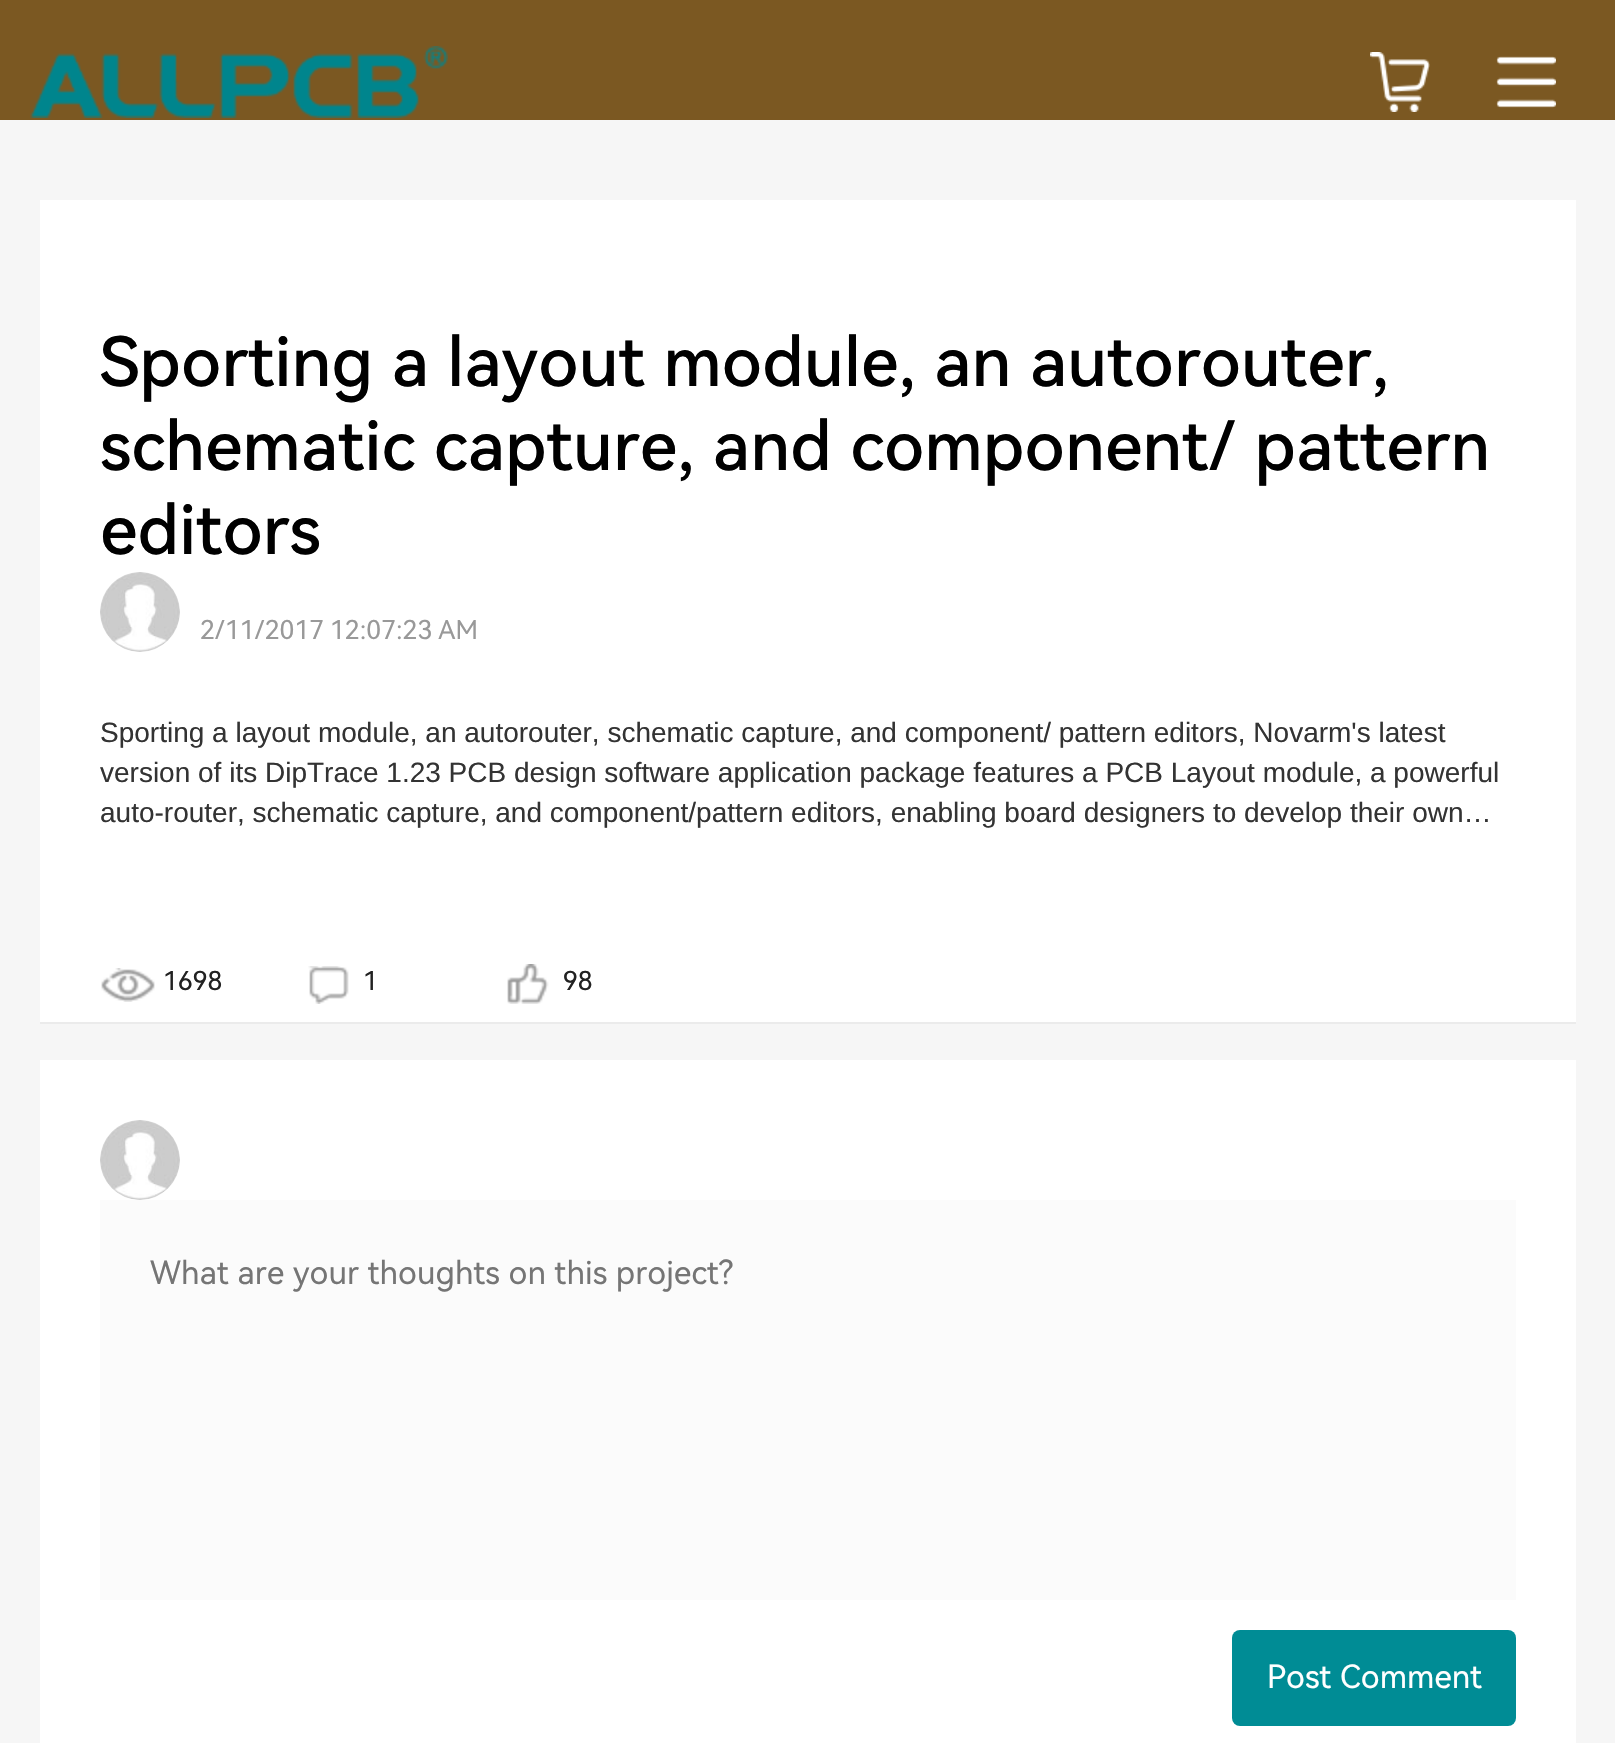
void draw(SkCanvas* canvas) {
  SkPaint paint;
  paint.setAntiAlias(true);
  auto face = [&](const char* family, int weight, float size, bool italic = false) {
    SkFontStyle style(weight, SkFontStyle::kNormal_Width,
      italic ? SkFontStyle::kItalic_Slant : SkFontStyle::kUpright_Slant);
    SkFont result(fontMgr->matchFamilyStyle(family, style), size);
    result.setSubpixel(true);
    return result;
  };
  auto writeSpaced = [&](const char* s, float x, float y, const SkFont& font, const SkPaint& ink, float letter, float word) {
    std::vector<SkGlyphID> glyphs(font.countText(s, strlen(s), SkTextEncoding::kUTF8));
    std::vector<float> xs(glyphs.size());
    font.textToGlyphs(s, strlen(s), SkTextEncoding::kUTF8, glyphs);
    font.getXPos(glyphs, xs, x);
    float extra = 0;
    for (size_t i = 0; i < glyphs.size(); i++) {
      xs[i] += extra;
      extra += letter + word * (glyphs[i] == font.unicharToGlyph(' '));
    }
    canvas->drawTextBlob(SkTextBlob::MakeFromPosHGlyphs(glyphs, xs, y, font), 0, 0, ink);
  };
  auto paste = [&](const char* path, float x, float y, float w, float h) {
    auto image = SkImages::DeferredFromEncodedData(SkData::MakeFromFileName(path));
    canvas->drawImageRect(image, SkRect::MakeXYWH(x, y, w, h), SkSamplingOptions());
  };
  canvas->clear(0xfff6f6f6);
  paint.setColor(0xff7b5822);
  canvas->drawRect(SkRect::MakeXYWH(0, 0, 1615, 120), paint);
  paste("img/1.png", 30, 46, 418, 72);
  paste("img/2.png", 1370, 52, 60, 60);
  paste("img/3.png", 1496, 56, 60, 52);
  paint.setColor(0xffffffff);
  canvas->drawRect(SkRect::MakeXYWH(40, 200, 1536, 822), paint);
  paint.setColor(0xffebebeb);
  canvas->drawRect(SkRect::MakeXYWH(40, 1022, 1536, 2), paint);
  paste("img/4.png", 100, 572, 80, 80);
  paste("img/5.png", 101, 968, 54, 34);
  paste("img/6.png", 308, 966, 41, 38);
  paste("img/7.png", 507, 964, 42, 40);
  paint.setColor(0xffffffff);
  canvas->drawRect(SkRect::MakeXYWH(40, 1060, 1536, 683), paint);
  paste("img/8.png", 100, 1120, 80, 80);
  paint.setColor(0xfffbfbfb);
  canvas->drawRect(SkRect::MakeXYWH(100, 1200, 1416, 400), paint);
  paint.setColor(0xff008c95);
  canvas->drawRoundRect(SkRect::MakeXYWH(1232, 1630, 284, 96), 8, 8, paint);
  auto f0 = face("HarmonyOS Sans", 500, 68);
  paint.setColor(0xff000000);
  {
    const struct { const char* s; float x, y; } items[] = {
      {"Sporting a layout module, an autorouter,", 100, 386},
      {"schematic capture, and component/ pattern", 100, 470},
      {"editors", 100, 554},
    };
    for (auto [s, x, y] : items) {
      canvas->drawString(s, x, y, f0, paint);
    }
  }
  auto f1 = face("HarmonyOS Sans", 400, 26);
  paint.setColor(0xff999999);
  writeSpaced("2/11/2017 12:07:23 AM", 200, 639, f1, paint, 0, -1);
  auto f2 = face("Liberation Sans", 400, 28);
  paint.setColor(0xff333333);
  {
    const struct { const char* s; float x, y; } items[] = {
      {"Sporting a layout module, an autorouter, schematic capture, and component/ pattern editors, Novarm's latest", 100, 742},
      {"version of its DipTrace 1.23 PCB design software application package features a PCB Layout module, a powerful", 100, 782},
      {"auto-router, schematic capture, and component/pattern editors, enabling board designers to develop their own…", 100, 822},
    };
    for (auto [s, x, y] : items) {
      canvas->drawString(s, x, y, f2, paint);
    }
  }
  paint.setColor(0xff222222);
  {
    const struct { const char* s; float x, y; } items[] = {
      {"1698", 163, 990},
      {"1", 363, 990},
      {"98", 563, 990},
    };
    for (auto [s, x, y] : items) {
      canvas->drawString(s, x, y, f1, paint);
    }
  }
  auto f3 = face("HarmonyOS Sans", 400, 32);
  paint.setColor(0xff757575);
  canvas->drawString("What are your thoughts on this project?", 150, 1284, f3, paint);
  paint.setColor(0xffffffff);
  canvas->drawString("Post Comment", 1267, 1688, f3, paint);
}
